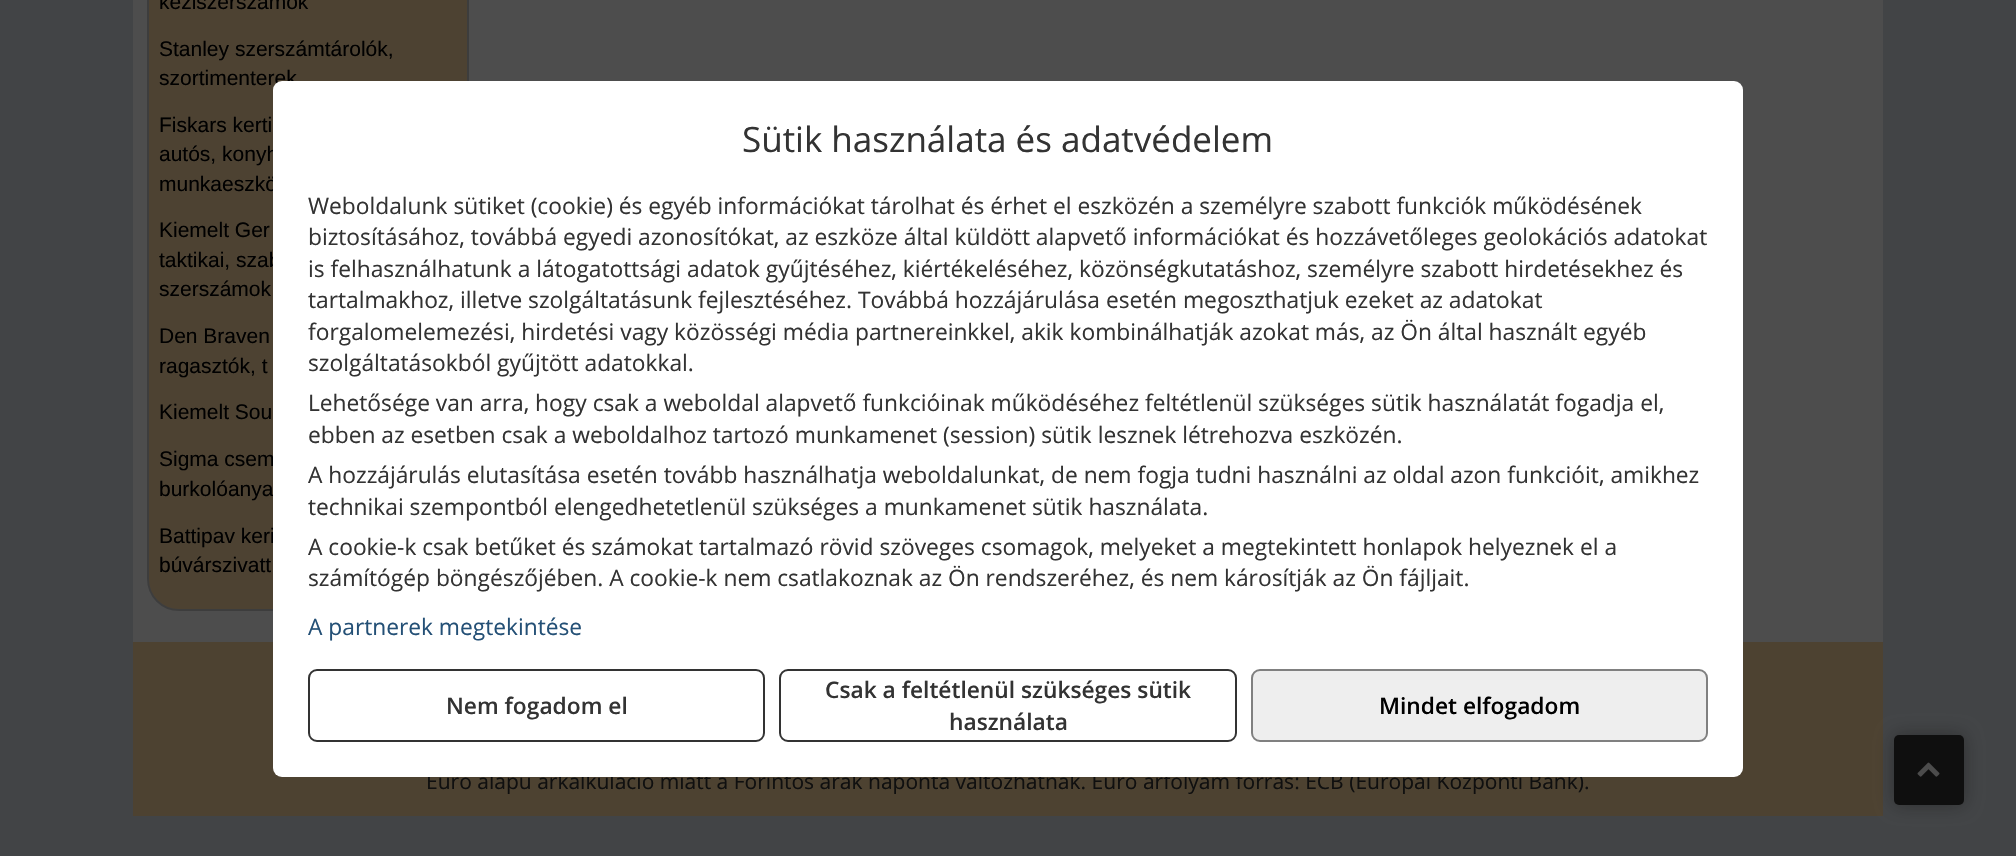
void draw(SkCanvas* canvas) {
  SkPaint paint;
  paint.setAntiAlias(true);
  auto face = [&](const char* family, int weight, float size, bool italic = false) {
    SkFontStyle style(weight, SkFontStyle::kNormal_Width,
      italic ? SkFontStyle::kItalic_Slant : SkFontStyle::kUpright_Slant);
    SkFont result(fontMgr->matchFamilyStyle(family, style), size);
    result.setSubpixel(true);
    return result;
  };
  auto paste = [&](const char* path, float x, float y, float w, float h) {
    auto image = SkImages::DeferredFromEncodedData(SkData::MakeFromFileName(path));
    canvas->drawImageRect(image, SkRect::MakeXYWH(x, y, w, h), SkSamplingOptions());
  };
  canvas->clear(0xff424446);
  paint.setColor(0xff4d4d4d);
  canvas->drawRect(SkRect::MakeXYWH(133, 0, 1750, 642), paint);
  paint.setColor(0xff4d4232);
  canvas->drawRoundRect(SkRect::MakeXYWH(148, -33, 320, 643), 31, 31, paint);
  paint.setStroke(true);
  paint.setStrokeWidth(2);
  paint.setColor(0xff3d3d3d);
  canvas->drawRoundRect(SkRect::MakeXYWH(148, -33, 320, 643), 31, 31, paint);
  paint.setStroke(false);
  paint.setColor(0xff4d4231);
  canvas->drawRect(SkRect::MakeXYWH(133, 642, 1750, 174), paint);
  paint.setColor(0x660f0f0f);
  paint.setMaskFilter(SkMaskFilter::MakeBlur(kNormal_SkBlurStyle, 9));
  canvas->drawRoundRect(SkRect::MakeXYWH(1894, 735, 70, 70), 5, 5, paint);
  paint.setMaskFilter(nullptr);
  paint.setColor(0xff0f0f0f);
  canvas->drawRoundRect(SkRect::MakeXYWH(1894, 735, 70, 70), 5, 5, paint);
  paste("img/1.png", 1917, 762, 23, 15);
  auto f0 = face("Liberation Sans", 400, 21);
  paint.setColor(0xff000000);
  {
    const struct { const char* s; float x, y; } items[] = {
      {"kéziszerszámok", 159, 9},
      {"Stanley szerszámtárolók,", 159, 56},
      {"szortimenterek", 159, 85},
      {"Fiskars kerti", 159, 132},
      {"autós, konyh", 159, 161},
      {"munkaeszkö", 159, 191},
      {"Kiemelt Ger", 159, 237},
      {"taktikai, szab", 159, 267},
      {"szerszámok", 159, 296},
      {"Den Braven", 159, 343},
      {"ragasztók, t", 159, 373},
      {"Kiemelt Sou", 159, 419},
      {"Sigma csem", 159, 466},
      {"burkolóanya", 159, 496},
      {"Battipav keri", 159, 543},
      {"búvárszivatt", 159, 572},
    };
    for (auto [s, x, y] : items) {
      canvas->drawString(s, x, y, f0, paint);
    }
  }
  auto f1 = face("Open Sans", 400, 21);
  paint.setColor(0xff0f0f0f);
  canvas->drawString("Euro alapú árkalkuláció miatt a Forintos árak naponta változhatnak. Euro árfolyam forrás: ECB (Európai Központi Bank).", 426, 789, f1, paint);
  paint.setColor(0xffffffff);
  canvas->drawRoundRect(SkRect::MakeXYWH(273, 81, 1470, 696), 9, 9, paint);
  auto f2 = face("Open Sans", 400, 35);
  paint.setColor(0xff333333);
  canvas->drawString("Sütik használata és adatvédelem", 742, 152, f2, paint);
  auto f3 = face("Open Sans", 400, 22.75f);
  {
    const struct { const char* s; float x, y; } items[] = {
      {"Weboldalunk sütiket (cookie) és egyéb információkat tárolhat és érhet el eszközén a személyre szabott funkciók működésének", 308, 214},
      {"biztosításához, továbbá egyedi azonosítókat, az eszköze által küldött alapvető információkat és hozzávetőleges geolokációs adatokat", 308, 245},
      {"is felhasználhatunk a látogatottsági adatok gyűjtéséhez, kiértékeléséhez, közönségkutatáshoz, személyre szabott hirdetésekhez és", 308, 277},
      {"tartalmakhoz, illetve szolgáltatásunk fejlesztéséhez. Továbbá hozzájárulása esetén megoszthatjuk ezeket az adatokat", 308, 308},
      {"forgalomelemezési, hirdetési vagy közösségi média partnereinkkel, akik kombinálhatják azokat más, az Ön által használt egyéb", 308, 340},
      {"szolgáltatásokból gyűjtött adatokkal.", 308, 371},
      {"Lehetősége van arra, hogy csak a weboldal alapvető funkcióinak működéséhez feltétlenül szükséges sütik használatát fogadja el,", 308, 411},
      {"ebben az esetben csak a weboldalhoz tartozó munkamenet (session) sütik lesznek létrehozva eszközén.", 308, 443},
      {"A hozzájárulás elutasítása esetén tovább használhatja weboldalunkat, de nem fogja tudni használni az oldal azon funkcióit, amikhez", 308, 483},
      {"technikai szempontból elengedhetetlenül szükséges a munkamenet sütik használata.", 308, 515},
      {"A cookie-k csak betűket és számokat tartalmazó rövid szöveges csomagok, melyeket a megtekintett honlapok helyeznek el a", 308, 555},
      {"számítógép böngészőjében. A cookie-k nem csatlakoznak az Ön rendszeréhez, és nem károsítják az Ön fájljait.", 308, 586},
    };
    for (auto [s, x, y] : items) {
      canvas->drawString(s, x, y, f3, paint);
    }
  }
  paint.setColor(0xff245076);
  canvas->drawString("A partnerek megtekintése", 308, 635, f3, paint);
  paint.setStroke(true);
  paint.setColor(0xff333333);
  canvas->drawRoundRect(SkRect::MakeXYWH(309, 670, 455, 71), 8, 8, paint);
  auto f4 = face("Open Sans", 600, 22.75f);
  paint.setStroke(false);
  canvas->drawString("Nem fogadom el", 446, 714, f4, paint);
  paint.setStroke(true);
  canvas->drawRoundRect(SkRect::MakeXYWH(780, 670, 456, 71), 8, 8, paint);
  paint.setStroke(false);
  canvas->drawString("Csak a feltétlenül szükséges sütik", 825, 698, f4, paint);
  canvas->drawString("használata", 949, 730, f4, paint);
  paint.setColor(0xffeeeeee);
  canvas->drawRoundRect(SkRect::MakeXYWH(1252, 670, 455, 71), 8, 8, paint);
  paint.setStroke(true);
  paint.setColor(0xff808080);
  canvas->drawRoundRect(SkRect::MakeXYWH(1252, 670, 455, 71), 8, 8, paint);
  paint.setStroke(false);
  paint.setColor(0xff000000);
  canvas->drawString("Mindet elfogadom", 1379, 714, f4, paint);
}
